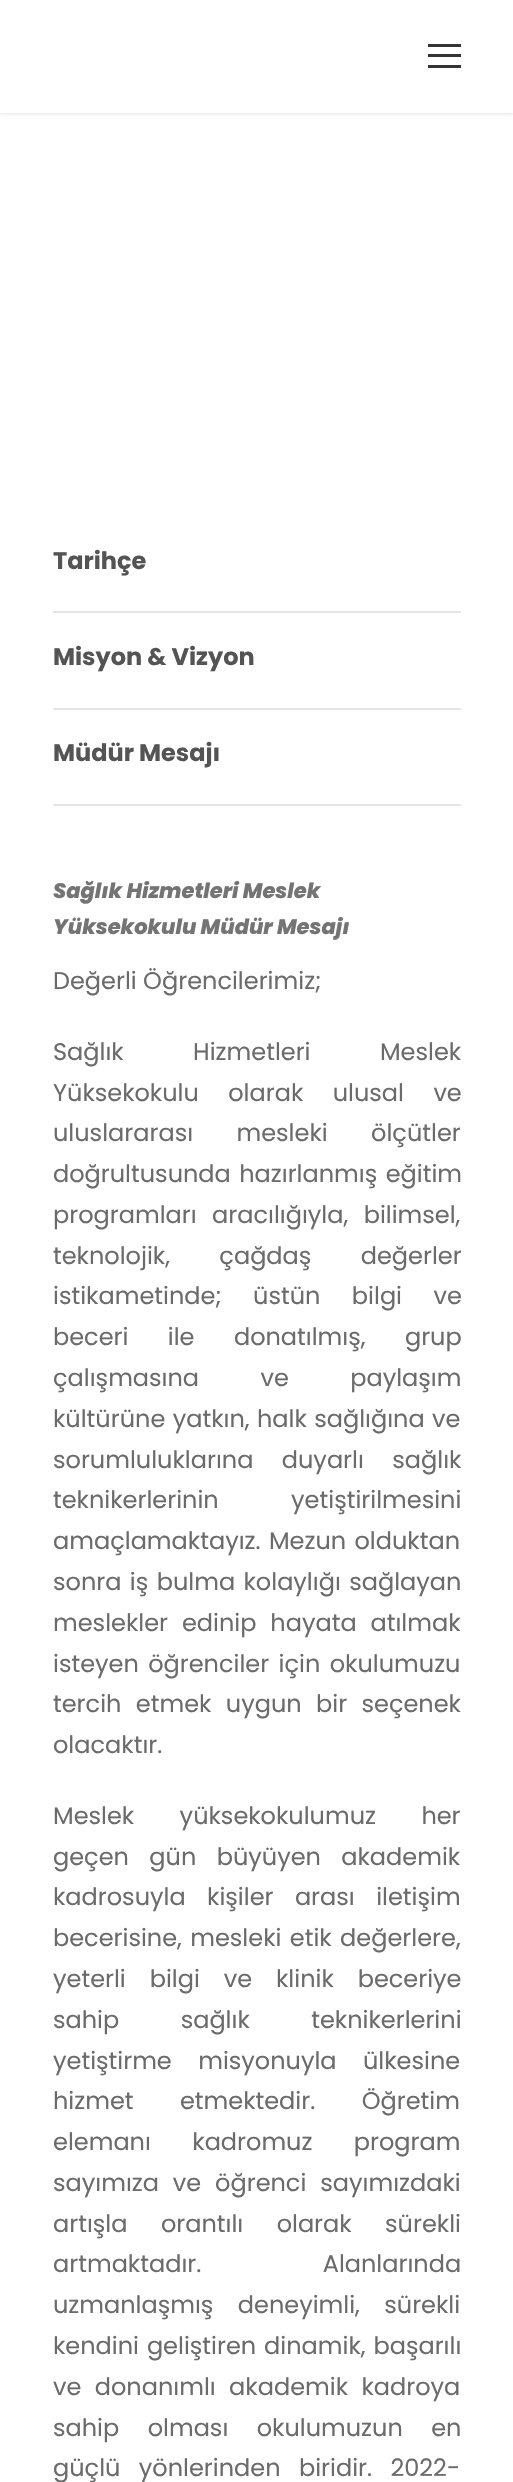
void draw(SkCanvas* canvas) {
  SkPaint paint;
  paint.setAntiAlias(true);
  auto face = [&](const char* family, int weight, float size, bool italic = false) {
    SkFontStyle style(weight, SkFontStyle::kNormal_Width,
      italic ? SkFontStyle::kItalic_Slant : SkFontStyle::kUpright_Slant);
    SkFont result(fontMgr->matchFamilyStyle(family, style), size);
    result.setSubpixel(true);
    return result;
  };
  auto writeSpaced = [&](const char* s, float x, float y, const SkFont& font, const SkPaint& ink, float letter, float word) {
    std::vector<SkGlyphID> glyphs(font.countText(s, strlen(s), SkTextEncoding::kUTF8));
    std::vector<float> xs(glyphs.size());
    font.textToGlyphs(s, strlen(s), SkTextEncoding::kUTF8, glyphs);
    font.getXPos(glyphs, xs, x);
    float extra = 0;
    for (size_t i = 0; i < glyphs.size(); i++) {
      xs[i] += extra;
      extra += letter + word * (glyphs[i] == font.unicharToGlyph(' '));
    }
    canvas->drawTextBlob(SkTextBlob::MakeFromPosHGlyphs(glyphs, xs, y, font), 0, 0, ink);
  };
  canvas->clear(0xffffffff);
  paint.setColor(0x1a000000);
  paint.setMaskFilter(SkMaskFilter::MakeBlur(kNormal_SkBlurStyle, 1.5f));
  canvas->drawRect(SkRect::MakeXYWH(0, 2, 513, 112), paint);
  paint.setMaskFilter(nullptr);
  {
    const struct { float x, y, w, h; SkColor color; } items[] = {
      {0, 0, 513, 113, 0xffffffff},
      {428, 44, 33, 3, 0xff333333},
      {428, 54, 33, 3, 0xff333333},
      {428, 65, 33, 3, 0xff333333},
      {53, 611, 408, 2, 0xffe6e6e6},
      {53, 708, 408, 2, 0xffe6e6e6},
      {53, 804, 408, 2, 0xffe6e6e6},
    };
    for (auto [x, y, w, h, color] : items) {
      paint.setColor(color);
      canvas->drawRect(SkRect::MakeXYWH(x, y, w, h), paint);
    }
  }
  auto f0 = face("Poppins", 700, 24);
  paint.setColor(0xff545454);
  {
    const struct { const char* s; float x, y; } items[] = {
      {"Tarihçe", 53, 569},
      {"Misyon & Vizyon", 53, 665},
      {"Müdür Mesajı", 53, 761},
    };
    for (auto [s, x, y] : items) {
      canvas->drawString(s, x, y, f0, paint);
    }
  }
  auto f1 = face("Poppins", 800, 21, true);
  paint.setColor(0xff747474);
  canvas->drawString("Sağlık Hizmetleri Meslek", 53, 898, f1, paint);
  canvas->drawString("Yüksekokulu Müdür Mesajı", 53, 934, f1, paint);
  auto f2 = face("Poppins", 400, 24);
  paint.setColor(0xff6b6b6b);
  canvas->drawString("Değerli Öğrencilerimiz;", 53, 989, f2, paint);
  writeSpaced("Sağlık Hizmetleri Meslek", 53, 1060, f2, paint, 0, 63);
  writeSpaced("Yüksekokulu olarak ulusal ve", 53, 1101, f2, paint, 0, 23);
  writeSpaced("uluslararası mesleki ölçütler", 53, 1141, f2, paint, 0, 37);
  writeSpaced("doğrultusunda hazırlanmış eğitim", 53, 1182, f2, paint, 0, 2);
  writeSpaced("programları aracılığıyla, bilimsel,", 53, 1223, f2, paint, 0, 9);
  writeSpaced("teknolojik, çağdaş değerler", 53, 1264, f2, paint, 0, 43);
  writeSpaced("istikametinde; üstün bilgi ve", 53, 1304, f2, paint, 0, 25);
  writeSpaced("beceri ile donatılmış, grup", 53, 1345, f2, paint, 0, 33);
  writeSpaced("çalışmasına ve paylaşım", 53, 1386, f2, paint, 0, 55);
  writeSpaced("kültürüne yatkın, halk sağlığına ve", 53, 1427, f2, paint, 0, 1);
  writeSpaced("sorumluluklarına duyarlı sağlık", 53, 1468, f2, paint, 0, 22);
  writeSpaced("teknikerlerinin yetiştirilmesini", 53, 1508, f2, paint, 0, 66);
  writeSpaced("amaçlamaktayız. Mezun olduktan", 53, 1549, f2, paint, 0, 2);
  writeSpaced("sonra iş bulma kolaylığı sağlayan", 53, 1590, f2, paint, 0, 2);
  writeSpaced("meslekler edinip hayata atılmak", 53, 1631, f2, paint, 0, 7.5f);
  writeSpaced("isteyen öğrenciler için okulumuzu", 53, 1672, f2, paint, 0, 3);
  writeSpaced("tercih etmek uygun bir seçenek", 53, 1712, f2, paint, 0, 8);
  canvas->drawString("olacaktır.", 53, 1753, f2, paint);
  writeSpaced("Meslek yüksekokulumuz her", 53, 1824, f2, paint, 0, 39);
  writeSpaced("geçen gün büyüyen akademik", 53, 1865, f2, paint, 0, 14);
  writeSpaced("kadrosuyla kişiler arası iletişim", 53, 1905, f2, paint, 0, 15);
  writeSpaced("becerisine, mesleki etik değerlere,", 53, 1946, f2, paint, 0, 2);
  writeSpaced("yeterli bilgi ve klinik beceriye", 53, 1987, f2, paint, 0, 17.5f);
  writeSpaced("sahip sağlık teknikerlerini", 53, 2028, f2, paint, 0, 55);
  writeSpaced("yetiştirme misyonuyla ülkesine", 53, 2069, f2, paint, 0, 20);
  writeSpaced("hizmet etmektedir. Öğretim", 53, 2109, f2, paint, 0, 40);
  writeSpaced("elemanı kadromuz program", 53, 2150, f2, paint, 0, 35);
  writeSpaced("sayımıza ve öğrenci sayımızdaki", 53, 2191, f2, paint, 0, 7.5f);
  writeSpaced("artışla orantılı olarak sürekli", 53, 2232, f2, paint, 0, 27);
  writeSpaced("artmaktadır. Alanlarında", 53, 2272, f2, paint, 0, 115);
  writeSpaced("uzmanlaşmış deneyimli, sürekli", 53, 2313, f2, paint, 0, 18);
  writeSpaced("kendini geliştiren dinamik, başarılı", 53, 2354, f2, paint, 0, 1.5f);
  writeSpaced("ve donanımlı akademik kadroya", 53, 2395, f2, paint, 0, 7);
  writeSpaced("sahip olması okulumuzun en", 53, 2436, f2, paint, 0, 22);
  writeSpaced("güçlü yönlerinden biridir. 2022-", 53, 2476, f2, paint, 0, 12);
}
